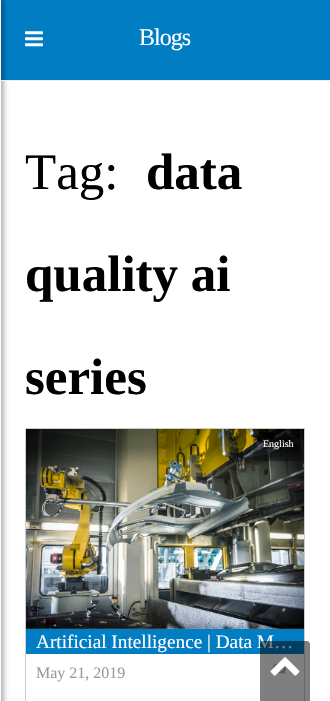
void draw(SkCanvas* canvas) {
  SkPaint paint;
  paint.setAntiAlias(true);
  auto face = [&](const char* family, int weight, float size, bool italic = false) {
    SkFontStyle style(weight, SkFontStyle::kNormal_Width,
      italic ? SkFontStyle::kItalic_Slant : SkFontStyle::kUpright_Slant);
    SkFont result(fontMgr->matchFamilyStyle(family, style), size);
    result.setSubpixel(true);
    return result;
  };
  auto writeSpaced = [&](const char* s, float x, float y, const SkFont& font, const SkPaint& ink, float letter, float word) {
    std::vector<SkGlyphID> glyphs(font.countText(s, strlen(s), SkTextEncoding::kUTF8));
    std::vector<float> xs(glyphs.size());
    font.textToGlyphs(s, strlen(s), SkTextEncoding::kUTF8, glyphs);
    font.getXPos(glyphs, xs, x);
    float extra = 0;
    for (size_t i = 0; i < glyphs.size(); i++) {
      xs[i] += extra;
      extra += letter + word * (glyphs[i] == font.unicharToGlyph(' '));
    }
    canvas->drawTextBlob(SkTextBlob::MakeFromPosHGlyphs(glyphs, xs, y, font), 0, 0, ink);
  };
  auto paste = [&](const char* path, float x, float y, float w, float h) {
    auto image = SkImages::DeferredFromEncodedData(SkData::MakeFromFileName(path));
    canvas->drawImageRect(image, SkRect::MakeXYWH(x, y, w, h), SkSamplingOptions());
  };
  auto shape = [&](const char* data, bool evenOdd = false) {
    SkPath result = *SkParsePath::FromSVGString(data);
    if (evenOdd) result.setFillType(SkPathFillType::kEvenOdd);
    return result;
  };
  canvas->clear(0xffffffff);
  paint.setColor(0xff007dc3);
  canvas->drawRect(SkRect::MakeXYWH(1, 0, 329, 80), paint);
  paint.setColor(0x4d000000);
  paint.setMaskFilter(SkMaskFilter::MakeBlur(kNormal_SkBlurStyle, 2.5f));
  canvas->drawRect(SkRect::MakeXYWH(-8, 0, 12, 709), paint);
  paint.setMaskFilter(nullptr);
  paint.setColor(0xffffffff);
  canvas->drawRect(SkRect::MakeXYWH(0, 0, 1, 701), paint);
  paint.setColor(0xffeeeeee);
  canvas->drawRect(SkRect::MakeXYWH(0, 80, 330, 1), paint);
  paste("img/1.png", 25, 31, 18, 16);
  paint.setStroke(true);
  paint.setStrokeWidth(1);
  paint.setColor(0xffcccccc);
  canvas->drawRect(SkRect::MakeXYWH(25.5f, 428.5f, 279, 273), paint);
  paste("img/2.png", 26, 429, 278, 200);
  paint.setStroke(false);
  paint.setColor(0x4d000000);
  canvas->drawRect(SkRect::MakeXYWH(253, 429, 51, 32), paint);
  paste("img/3.png", 273, 663, 13, 11);
  paint.setColor(0xff007dc3);
  canvas->drawRect(SkRect::MakeXYWH(26, 629, 278, 25), paint);
  auto f0 = face("Liberation Serif", 400, 24);
  paint.setColor(0xffffffff);
  writeSpaced("Blogs", 139, 45, f0, paint, -1, 0);
  auto f1 = face("Liberation Serif", 400, 51);
  paint.setColor(0xff000000);
  canvas->drawString("Tag:", 25, 189, f1, paint);
  auto f2 = face("Liberation Serif", 700, 51);
  {
    const struct { const char* s; float x, y; } items[] = {
      {"data", 146, 189},
      {"quality ai", 25, 291},
      {"series", 25, 394},
    };
    for (auto [s, x, y] : items) {
      canvas->drawString(s, x, y, f2, paint);
    }
  }
  auto f3 = face("Liberation Serif", 400, 10);
  paint.setColor(0xffffffff);
  canvas->drawString("English", 263, 447, f3, paint);
  auto f4 = face("Liberation Serif", 400, 16);
  paint.setColor(0xff999999);
  canvas->drawString("May 21, 2019", 36, 678, f4, paint);
  auto f5 = face("Liberation Serif", 400, 19.25f);
  paint.setColor(0xffffffff);
  canvas->drawString("Artificial Intelligence | Data M…", 36, 648, f5, paint);
  paint.setColor(0x80000000);
  canvas->drawPath(shape("M263 641H307C308.5 641 310 642.5 310 644V701H260V644C260 642.5 261.5 641 263 641Z"), paint);
  paste("img/4.png", 270, 657, 30, 19);
}
